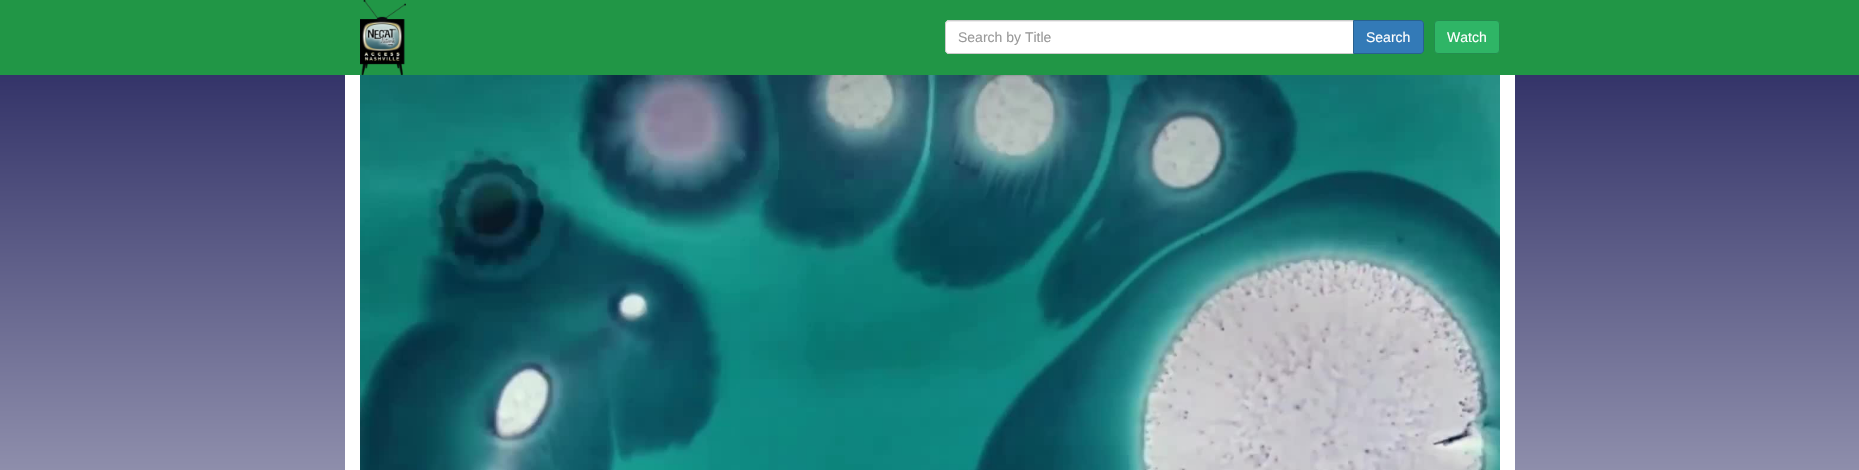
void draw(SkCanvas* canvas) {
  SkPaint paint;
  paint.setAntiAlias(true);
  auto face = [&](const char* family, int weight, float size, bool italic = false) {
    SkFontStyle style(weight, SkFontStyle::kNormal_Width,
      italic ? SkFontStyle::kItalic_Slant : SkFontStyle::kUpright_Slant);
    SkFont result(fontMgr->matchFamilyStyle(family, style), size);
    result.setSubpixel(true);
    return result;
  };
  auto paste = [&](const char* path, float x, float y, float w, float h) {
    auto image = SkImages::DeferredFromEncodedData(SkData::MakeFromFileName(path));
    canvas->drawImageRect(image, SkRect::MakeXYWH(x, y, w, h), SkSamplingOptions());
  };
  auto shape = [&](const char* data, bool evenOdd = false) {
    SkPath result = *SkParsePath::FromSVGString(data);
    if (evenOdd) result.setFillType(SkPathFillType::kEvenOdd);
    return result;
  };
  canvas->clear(0xff219646);
  paste("img/1.png", 360, 0, 46, 75);
  paint.setColor(0xffffffff);
  canvas->drawPath(shape("M949 20H1354V54H949C947 54 945 52 945 50V24C945 22 947 20 949 20Z"), paint);
  paint.setColor(0xffececec);
  canvas->drawPath(shape("M949 22H1353V21H949C947 21 946 23 946 25C946 23 947 22 949 22Z"), paint);
  paint.setStroke(true);
  paint.setStrokeWidth(1);
  paint.setColor(0xffcccccc);
  canvas->drawPath(shape("M949 20.5H1353.5V53.5H949C947 53.5 945.5 52 945.5 50V24C945.5 22 947 20.5 949 20.5Z"), paint);
  paint.setStroke(false);
  paint.setColor(0xff337ab7);
  canvas->drawPath(shape("M1353.5 20.5H1420C1422 20.5 1423.5 22 1423.5 24V50C1423.5 52 1422 53.5 1420 53.5H1353.5Z"), paint);
  paint.setStroke(true);
  paint.setColor(0xff28618f);
  canvas->drawPath(shape("M1353.5 20.5H1420C1422 20.5 1423.5 22 1423.5 24V50C1423.5 52 1422 53.5 1420 53.5H1353.5Z"), paint);
  paint.setStroke(false);
  paint.setColor(0xff2fb566);
  canvas->drawRoundRect(SkRect::MakeXYWH(1434.5f, 20.5f, 65, 33), 3.5f, 3.5f, paint);
  paint.setStroke(true);
  paint.setColor(0xff248d4e);
  canvas->drawRoundRect(SkRect::MakeXYWH(1434.5f, 20.5f, 65, 33), 3.5f, 3.5f, paint);
  paint.setStroke(false);
  {
    const SkColor colors[] = {0xff343469, 0xffffffff};
    const float stops[] = {0, 1};
    const SkPoint ends[] = {{930, 75}, {930, 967}};
    paint.setShader(SkGradientShader::MakeLinear(ends, colors, stops, 2, SkTileMode::kClamp));
    paint.setAlpha(255);
  }
  canvas->drawRect(SkRect::MakeXYWH(0, 75, 1859, 395), paint);
  paint.setShader(nullptr);
  paint.setColor(0xffffffff);
  canvas->drawRect(SkRect::MakeXYWH(345, 75, 1170, 395), paint);
  paste("img/2.png", 360, 75, 1140, 395);
  auto f0 = face("Liberation Sans", 400, 14);
  paint.setColor(0xff999999);
  canvas->drawString("Search by Title", 958, 42, f0, paint);
  paint.setColor(0xffffffff);
  canvas->drawString("Search", 1366, 42, f0, paint);
  canvas->drawString("Watch", 1447, 42, f0, paint);
}
